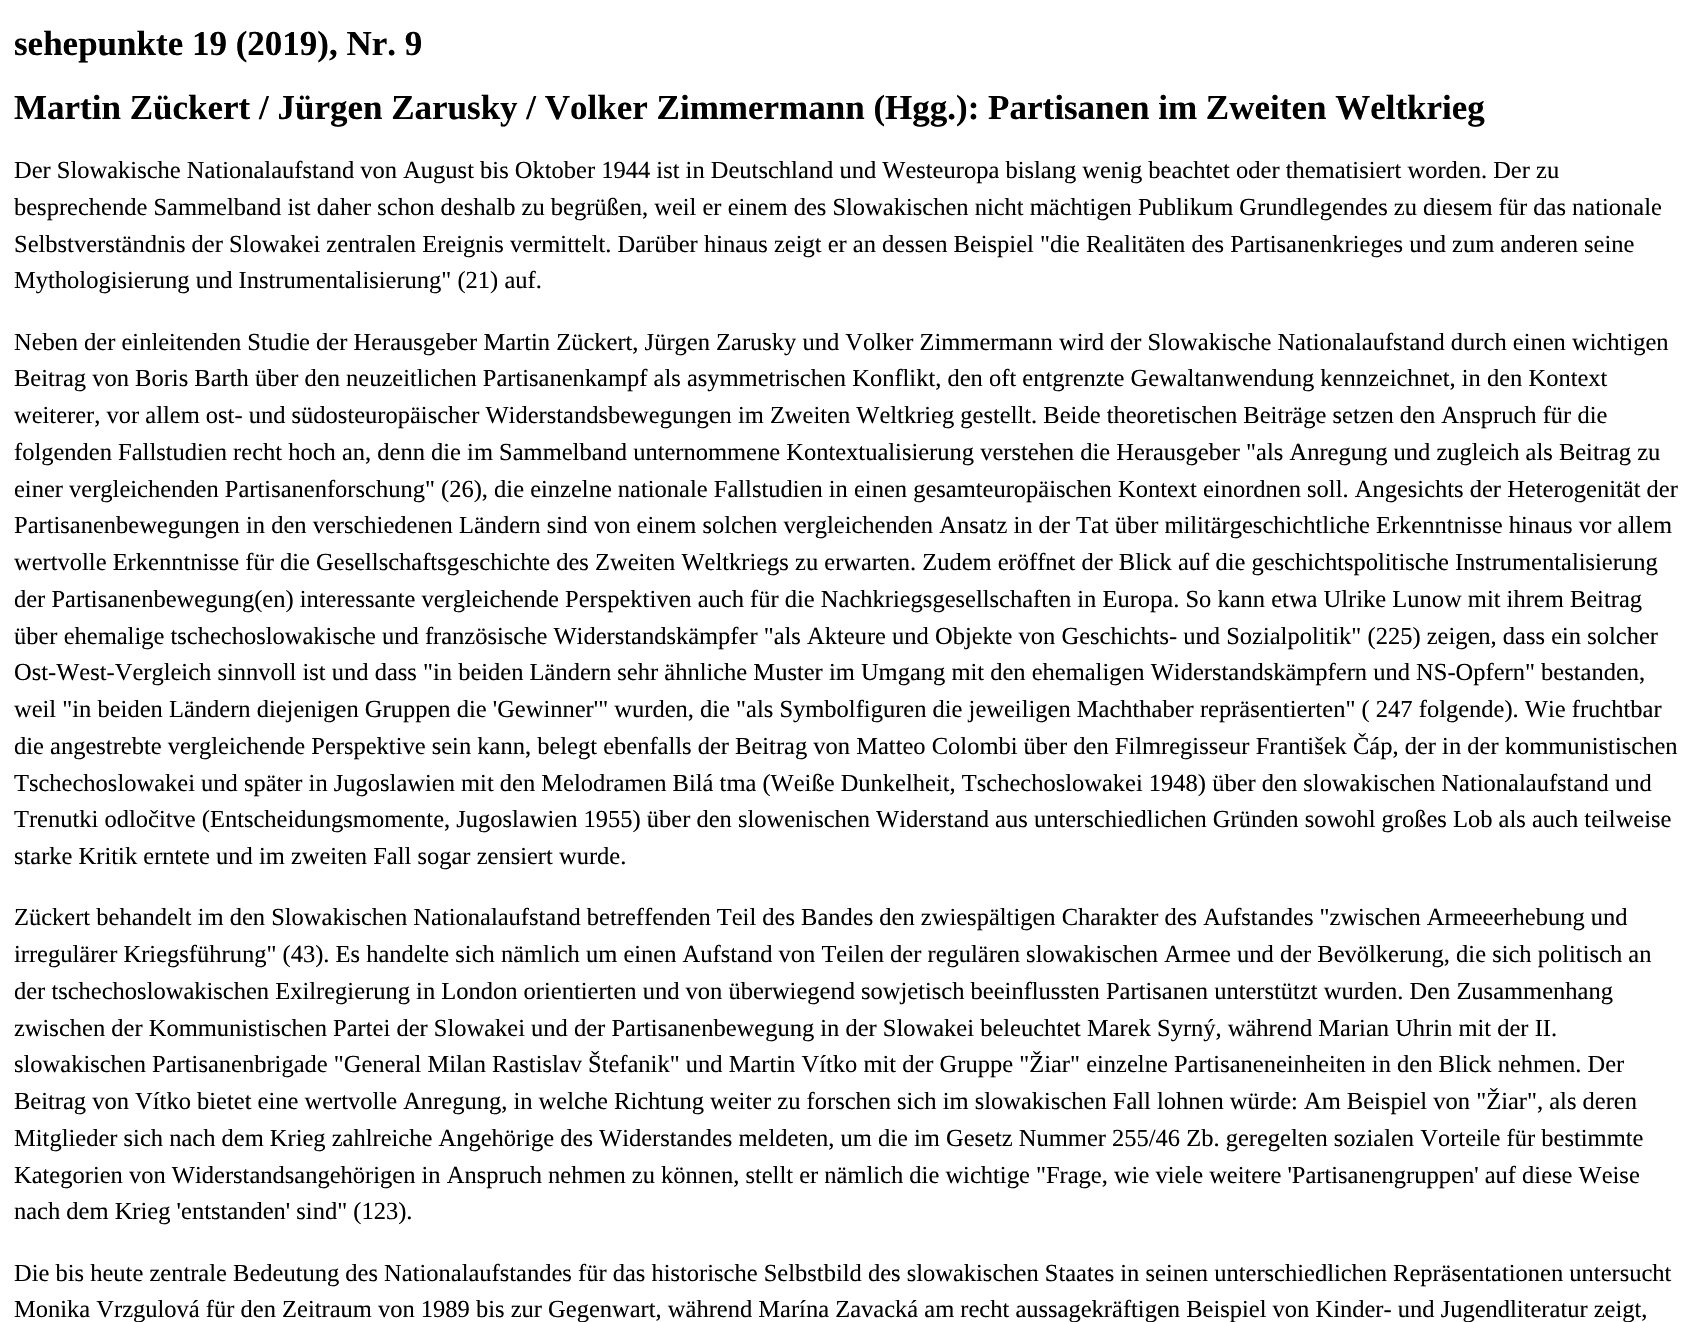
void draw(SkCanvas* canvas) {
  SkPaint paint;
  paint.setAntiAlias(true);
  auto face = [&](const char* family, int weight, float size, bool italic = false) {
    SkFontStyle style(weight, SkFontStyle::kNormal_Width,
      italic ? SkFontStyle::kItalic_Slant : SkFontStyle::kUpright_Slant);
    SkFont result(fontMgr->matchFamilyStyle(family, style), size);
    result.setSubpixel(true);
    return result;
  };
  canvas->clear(0xffffffff);
  auto f0 = face("Liberation Serif", 700, 35);
  paint.setColor(0xff000000);
  canvas->drawString("sehepunkte 19 (2019), Nr. 9", 14, 55, f0, paint);
  canvas->drawString("Martin Zückert / Jürgen Zarusky / Volker Zimmermann (Hgg.): Partisanen im Zweiten Weltkrieg", 14, 119, f0, paint);
  auto f1 = face("Liberation Serif", 400, 24.5f);
  {
    const struct { const char* s; float x, y; } items[] = {
      {"Der Slowakische Nationalaufstand von August bis Oktober 1944 ist in Deutschland und Westeuropa bislang wenig beachtet oder thematisiert worden. Der zu", 14, 178},
      {"besprechende Sammelband ist daher schon deshalb zu begrüßen, weil er einem des Slowakischen nicht mächtigen Publikum Grundlegendes zu diesem für das nationale", 14, 215},
      {"Selbstverständnis der Slowakei zentralen Ereignis vermittelt. Darüber hinaus zeigt er an dessen Beispiel \"die Realitäten des Partisanenkrieges und zum anderen seine", 14, 252},
      {"Mythologisierung und Instrumentalisierung\" (21) auf.", 14, 288},
      {"Neben der einleitenden Studie der Herausgeber Martin Zückert, Jürgen Zarusky und Volker Zimmermann wird der Slowakische Nationalaufstand durch einen wichtigen", 14, 350},
      {"Beitrag von Boris Barth über den neuzeitlichen Partisanenkampf als asymmetrischen Konflikt, den oft entgrenzte Gewaltanwendung kennzeichnet, in den Kontext", 14, 386},
      {"weiterer, vor allem ost- und südosteuropäischer Widerstandsbewegungen im Zweiten Weltkrieg gestellt. Beide theoretischen Beiträge setzen den Anspruch für die", 14, 423},
      {"folgenden Fallstudien recht hoch an, denn die im Sammelband unternommene Kontextualisierung verstehen die Herausgeber \"als Anregung und zugleich als Beitrag zu", 14, 460},
      {"einer vergleichenden Partisanenforschung\" (26), die einzelne nationale Fallstudien in einen gesamteuropäischen Kontext einordnen soll. Angesichts der Heterogenität der", 14, 497},
      {"Partisanenbewegungen in den verschiedenen Ländern sind von einem solchen vergleichenden Ansatz in der Tat über militärgeschichtliche Erkenntnisse hinaus vor allem", 14, 533},
      {"wertvolle Erkenntnisse für die Gesellschaftsgeschichte des Zweiten Weltkriegs zu erwarten. Zudem eröffnet der Blick auf die geschichtspolitische Instrumentalisierung", 14, 570},
      {"der Partisanenbewegung(en) interessante vergleichende Perspektiven auch für die Nachkriegsgesellschaften in Europa. So kann etwa Ulrike Lunow mit ihrem Beitrag", 14, 607},
      {"über ehemalige tschechoslowakische und französische Widerstandskämpfer \"als Akteure und Objekte von Geschichts- und Sozialpolitik\" (225) zeigen, dass ein solcher", 14, 644},
      {"Ost-West-Vergleich sinnvoll ist und dass \"in beiden Ländern sehr ähnliche Muster im Umgang mit den ehemaligen Widerstandskämpfern und NS-Opfern\" bestanden,", 14, 680},
      {"weil \"in beiden Ländern diejenigen Gruppen die 'Gewinner'\" wurden, die \"als Symbolfiguren die jeweiligen Machthaber repräsentierten\" ( 247 folgende). Wie fruchtbar", 14, 717},
      {"die angestrebte vergleichende Perspektive sein kann, belegt ebenfalls der Beitrag von Matteo Colombi über den Filmregisseur František Čáp, der in der kommunistischen", 14, 754},
      {"Tschechoslowakei und später in Jugoslawien mit den Melodramen Bilá tma (Weiße Dunkelheit, Tschechoslowakei 1948) über den slowakischen Nationalaufstand und", 14, 791},
      {"Trenutki odločitve (Entscheidungsmomente, Jugoslawien 1955) über den slowenischen Widerstand aus unterschiedlichen Gründen sowohl großes Lob als auch teilweise", 14, 827},
      {"starke Kritik erntete und im zweiten Fall sogar zensiert wurde.", 14, 864},
      {"Zückert behandelt im den Slowakischen Nationalaufstand betreffenden Teil des Bandes den zwiespältigen Charakter des Aufstandes \"zwischen Armeeerhebung und", 14, 925},
      {"irregulärer Kriegsführung\" (43). Es handelte sich nämlich um einen Aufstand von Teilen der regulären slowakischen Armee und der Bevölkerung, die sich politisch an", 14, 962},
      {"der tschechoslowakischen Exilregierung in London orientierten und von überwiegend sowjetisch beeinflussten Partisanen unterstützt wurden. Den Zusammenhang", 14, 999},
      {"zwischen der Kommunistischen Partei der Slowakei und der Partisanenbewegung in der Slowakei beleuchtet Marek Syrný, während Marian Uhrin mit der II.", 14, 1036},
      {"slowakischen Partisanenbrigade \"General Milan Rastislav Štefanik\" und Martin Vítko mit der Gruppe \"Žiar\" einzelne Partisaneneinheiten in den Blick nehmen. Der", 14, 1072},
      {"Beitrag von Vítko bietet eine wertvolle Anregung, in welche Richtung weiter zu forschen sich im slowakischen Fall lohnen würde: Am Beispiel von \"Žiar\", als deren", 14, 1109},
      {"Mitglieder sich nach dem Krieg zahlreiche Angehörige des Widerstandes meldeten, um die im Gesetz Nummer 255/46 Zb. geregelten sozialen Vorteile für bestimmte", 14, 1146},
      {"Kategorien von Widerstandsangehörigen in Anspruch nehmen zu können, stellt er nämlich die wichtige \"Frage, wie viele weitere 'Partisanengruppen' auf diese Weise", 14, 1183},
      {"nach dem Krieg 'entstanden' sind\" (123).", 14, 1219},
      {"Die bis heute zentrale Bedeutung des Nationalaufstandes für das historische Selbstbild des slowakischen Staates in seinen unterschiedlichen Repräsentationen untersucht", 14, 1281},
      {"Monika Vrzgulová für den Zeitraum von 1989 bis zur Gegenwart, während Marína Zavacká am recht aussagekräftigen Beispiel von Kinder- und Jugendliteratur zeigt,", 14, 1317},
    };
    for (auto [s, x, y] : items) {
      canvas->drawString(s, x, y, f1, paint);
    }
  }
}
